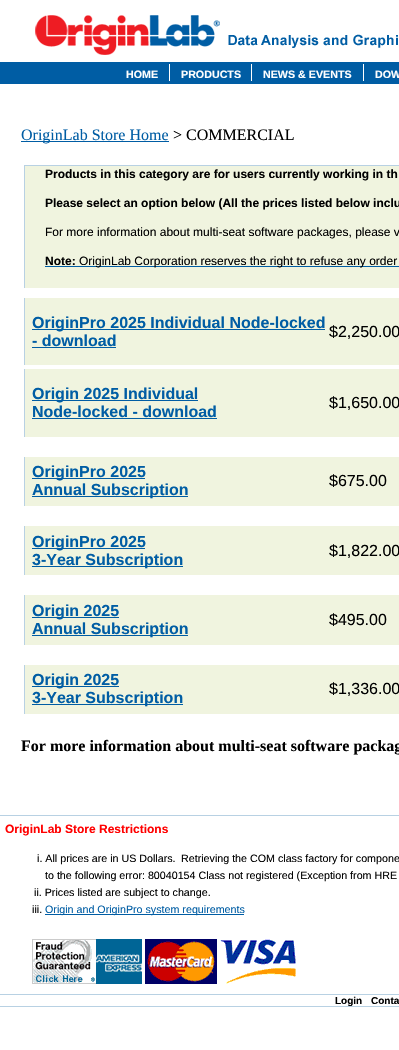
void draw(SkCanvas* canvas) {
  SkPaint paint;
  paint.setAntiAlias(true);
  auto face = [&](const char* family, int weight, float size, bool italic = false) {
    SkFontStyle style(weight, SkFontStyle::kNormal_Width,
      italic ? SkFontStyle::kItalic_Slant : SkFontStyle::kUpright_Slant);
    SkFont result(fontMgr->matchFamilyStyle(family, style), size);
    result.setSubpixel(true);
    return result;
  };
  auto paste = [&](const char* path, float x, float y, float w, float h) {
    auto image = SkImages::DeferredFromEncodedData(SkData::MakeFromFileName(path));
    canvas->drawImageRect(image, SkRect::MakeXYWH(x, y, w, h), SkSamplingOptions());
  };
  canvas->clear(0xffffffff);
  paste("img/1.png", 228, 34, 170, 14);
  paste("img/2.png", 35, 15, 185, 40);
  {
    const struct { float x, y, w, h; SkColor color; } items[] = {
      {0, 62, 399, 22, 0xff005da4},
      {169, 64, 1, 17, 0xffffffff},
      {251, 64, 1, 17, 0xffffffff},
      {363, 64, 1, 17, 0xffffffff},
      {21, 141, 148, 1, 0xff005da4},
      {24, 165, 375, 1, 0xffb8d1e3},
      {24, 165, 1, 123, 0xffb8d1e3},
      {25, 166, 374, 122, 0xfff0f4df},
      {45, 266, 354, 1, 0xff005da4},
      {25, 298, 374, 67, 0xfff0f4df},
      {24, 298, 1, 67, 0xffb8d1e3},
      {32, 329, 293, 1, 0xff005da4},
      {32, 347, 84, 1, 0xff005da4},
      {25, 369, 374, 68, 0xfff0f4df},
      {24, 369, 1, 68, 0xffb8d1e3},
      {32, 400, 166, 1, 0xff005da4},
      {32, 418, 185, 1, 0xff005da4},
      {25, 457, 374, 49, 0xfff0f4df},
      {24, 457, 1, 49, 0xffb8d1e3},
      {32, 478, 113, 1, 0xff005da4},
      {32, 496, 156, 1, 0xff005da4},
      {25, 526, 374, 49, 0xfff0f4df},
      {24, 526, 1, 49, 0xffb8d1e3},
      {32, 548, 113, 1, 0xff005da4},
      {32, 566, 151, 1, 0xff005da4},
      {25, 595, 374, 50, 0xfff0f4df},
      {24, 595, 1, 50, 0xffb8d1e3},
      {32, 617, 87, 1, 0xff005da4},
      {32, 635, 156, 1, 0xff005da4},
      {25, 665, 374, 49, 0xfff0f4df},
      {24, 665, 1, 49, 0xffb8d1e3},
      {32, 686, 87, 1, 0xff005da4},
      {32, 704, 151, 1, 0xff005da4},
      {0, 815, 399, 1, 0xffb8d1e3},
      {45, 914, 199, 1, 0xff005da4},
    };
    for (auto [x, y, w, h, color] : items) {
      paint.setColor(color);
      canvas->drawRect(SkRect::MakeXYWH(x, y, w, h), paint);
    }
  }
  paste("img/3.png", 32, 939, 110, 45);
  paste("img/4.png", 145, 939, 72, 45);
  paste("img/5.png", 220, 939, 76, 45);
  paint.setColor(0xffb8d1e3);
  canvas->drawRect(SkRect::MakeXYWH(0, 1006, 399, 1), paint);
  canvas->drawRect(SkRect::MakeXYWH(0, 994, 399, 1), paint);
  auto f0 = face("Liberation Sans", 700, 10.7f);
  paint.setColor(0xffffffff);
  {
    const struct { const char* s; float x, y; } items[] = {
      {"HOME", 126, 78},
      {"PRODUCTS", 181, 78},
      {"NEWS & EVENTS", 263, 78},
      {"DOW", 375, 78},
    };
    for (auto [s, x, y] : items) {
      canvas->drawString(s, x, y, f0, paint);
    }
  }
  auto f1 = face("Liberation Serif", 400, 16);
  paint.setColor(0xff005da4);
  canvas->drawString("OriginLab Store Home", 21, 140, f1, paint);
  paint.setColor(0xff000000);
  canvas->drawString("> COMMERCIAL", 173, 140, f1, paint);
  auto f2 = face("Liberation Sans", 700, 12);
  canvas->drawString("Products in this category are for users currently working in th", 45, 178, f2, paint);
  canvas->drawString("Please select an option below (All the prices listed below inclu", 45, 207, f2, paint);
  auto f3 = face("Liberation Sans", 400, 12);
  canvas->drawString("For more information about multi-seat software packages, please v", 45, 236, f3, paint);
  canvas->drawString("Note:", 45, 265, f2, paint);
  canvas->drawString("OriginLab Corporation reserves the right to refuse any order", 79, 265, f3, paint);
  auto f4 = face("Liberation Sans", 700, 16);
  paint.setColor(0xff005da4);
  canvas->drawString("OriginPro 2025 Individual Node-locked", 32, 328, f4, paint);
  canvas->drawString("- download", 32, 346, f4, paint);
  auto f5 = face("Liberation Sans", 400, 16);
  paint.setColor(0xff000000);
  canvas->drawString("$2,250.00", 329, 337, f5, paint);
  paint.setColor(0xff005da4);
  canvas->drawString("Origin 2025 Individual", 32, 399, f4, paint);
  canvas->drawString("Node-locked - download", 32, 417, f4, paint);
  paint.setColor(0xff000000);
  canvas->drawString("$1,650.00", 329, 408, f5, paint);
  paint.setColor(0xff005da4);
  canvas->drawString("OriginPro 2025", 32, 477, f4, paint);
  canvas->drawString("Annual Subscription", 32, 495, f4, paint);
  paint.setColor(0xff000000);
  canvas->drawString("$675.00", 329, 486, f5, paint);
  paint.setColor(0xff005da4);
  canvas->drawString("OriginPro 2025", 32, 547, f4, paint);
  canvas->drawString("3-Year Subscription", 32, 565, f4, paint);
  paint.setColor(0xff000000);
  canvas->drawString("$1,822.00", 329, 556, f5, paint);
  paint.setColor(0xff005da4);
  canvas->drawString("Origin 2025", 32, 616, f4, paint);
  canvas->drawString("Annual Subscription", 32, 634, f4, paint);
  paint.setColor(0xff000000);
  canvas->drawString("$495.00", 329, 625, f5, paint);
  paint.setColor(0xff005da4);
  canvas->drawString("Origin 2025", 32, 685, f4, paint);
  canvas->drawString("3-Year Subscription", 32, 703, f4, paint);
  paint.setColor(0xff000000);
  canvas->drawString("$1,336.00", 329, 694, f5, paint);
  auto f6 = face("Liberation Serif", 700, 16);
  canvas->drawString("For more information about multi-seat software packag", 21, 751, f6, paint);
  paint.setColor(0xffff0000);
  canvas->drawString("OriginLab Store Restrictions", 5, 833, f2, paint);
  auto f7 = face("Liberation Sans", 400, 10.7f);
  paint.setColor(0xff000000);
  {
    const struct { const char* s; float x, y; } items[] = {
      {"i. All prices are in US Dollars.", 37, 862},
      {"Retrieving the COM class factory for compone", 181, 862},
      {"to the following error: 80040154 Class not registered (Exception from HRE", 45, 879},
      {"ii. Prices listed are subject to change.", 34, 896},
      {"iii.", 32, 913},
    };
    for (auto [s, x, y] : items) {
      canvas->drawString(s, x, y, f7, paint);
    }
  }
  paint.setColor(0xff005da4);
  canvas->drawString("Origin and OriginPro system requirements", 45, 913, f7, paint);
  auto f8 = face("Liberation Sans", 700, 10);
  paint.setColor(0xff000000);
  canvas->drawString("Login", 335, 1004, f8, paint);
  canvas->drawString("Conta", 371, 1004, f8, paint);
}
